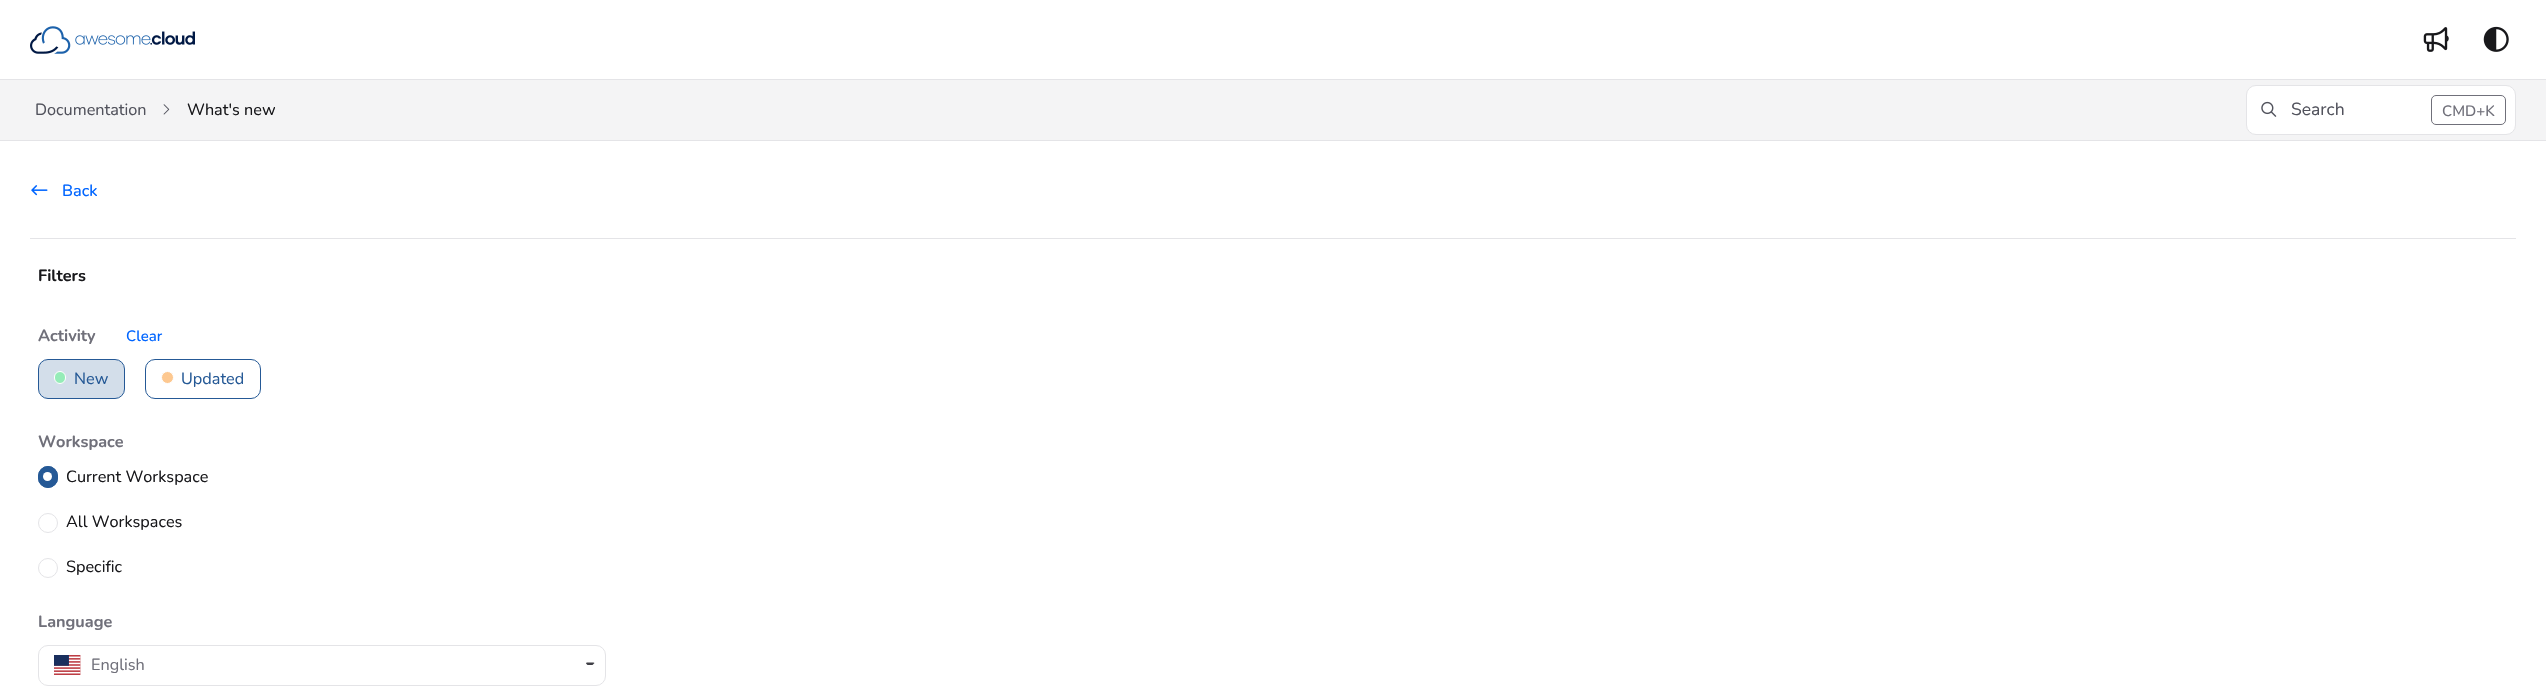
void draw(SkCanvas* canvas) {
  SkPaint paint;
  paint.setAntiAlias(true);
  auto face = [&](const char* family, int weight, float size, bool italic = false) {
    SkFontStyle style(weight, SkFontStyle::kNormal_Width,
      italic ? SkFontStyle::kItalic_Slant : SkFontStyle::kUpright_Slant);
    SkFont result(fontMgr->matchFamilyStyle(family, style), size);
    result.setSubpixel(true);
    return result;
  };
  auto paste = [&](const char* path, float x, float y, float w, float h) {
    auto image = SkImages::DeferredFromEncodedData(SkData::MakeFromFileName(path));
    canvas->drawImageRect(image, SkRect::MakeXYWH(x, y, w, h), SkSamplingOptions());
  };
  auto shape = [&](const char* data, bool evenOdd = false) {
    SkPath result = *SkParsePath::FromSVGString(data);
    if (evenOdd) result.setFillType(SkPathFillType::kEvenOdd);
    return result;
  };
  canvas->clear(0xffffffff);
  paste("img/1.png", 30, 26, 165, 28);
  paste("img/2.png", 2423, 27, 26, 25);
  paste("img/3.png", 2483, 26, 26, 26);
  {
    const struct { float x, y, w, h; SkColor color; } items[] = {
      {0, 79, 2546, 1, 0xffe4e4e7},
      {0, 140, 2546, 1, 0xffe4e4e7},
      {0, 80, 2546, 60, 0xfff4f4f5},
    };
    for (auto [x, y, w, h, color] : items) {
      paint.setColor(color);
      canvas->drawRect(SkRect::MakeXYWH(x, y, w, h), paint);
    }
  }
  paste("img/4.png", 163, 104, 7, 11);
  paint.setColor(0xffffffff);
  canvas->drawRoundRect(SkRect::MakeXYWH(2246.5f, 85.5f, 269, 49), 9.5f, 9.5f, paint);
  paint.setStroke(true);
  paint.setStrokeWidth(1);
  paint.setColor(0xffe4e4e7);
  canvas->drawRoundRect(SkRect::MakeXYWH(2246.5f, 85.5f, 269, 49), 9.5f, 9.5f, paint);
  paste("img/5.png", 2261, 101, 16, 16);
  paint.setColor(0xff70707a);
  canvas->drawRoundRect(SkRect::MakeXYWH(2431.5f, 95.5f, 74, 29), 4.5f, 4.5f, paint);
  paste("img/6.png", 31, 185, 17, 11);
  paint.setStroke(false);
  paint.setColor(0xffe4e4e7);
  canvas->drawRect(SkRect::MakeXYWH(30, 238, 2486, 1), paint);
  paint.setColor(0xffd3deea);
  canvas->drawRoundRect(SkRect::MakeXYWH(38.5f, 359.5f, 86, 39), 9.5f, 9.5f, paint);
  paint.setStroke(true);
  paint.setColor(0xff255996);
  canvas->drawRoundRect(SkRect::MakeXYWH(38.5f, 359.5f, 86, 39), 9.5f, 9.5f, paint);
  paint.setStroke(false);
  paint.setColor(0xff95ecb8);
  canvas->drawRoundRect(SkRect::MakeXYWH(54.5f, 371.5f, 11, 12), 5.5f, 5.5f, paint);
  paint.setStroke(true);
  paint.setColor(0xffffffff);
  canvas->drawRoundRect(SkRect::MakeXYWH(54.5f, 371.5f, 11, 12), 5.5f, 5.5f, paint);
  paint.setColor(0xff255996);
  canvas->drawRoundRect(SkRect::MakeXYWH(145.5f, 359.5f, 115, 39), 9.5f, 9.5f, paint);
  paint.setStroke(false);
  paint.setColor(0xfffdc890);
  canvas->drawCircle(167.5f, 377.5f, 6, paint);
  paint.setStroke(true);
  paint.setColor(0xffffffff);
  canvas->drawCircle(167.5f, 377.5f, 6, paint);
  paint.setStroke(false);
  paint.setColor(0xff255996);
  canvas->drawRoundRect(SkRect::MakeXYWH(38, 466, 20, 22), 10, 10, paint);
  paint.setColor(0xffffffff);
  canvas->drawCircle(47.5f, 476.5f, 4.5f, paint);
  paint.setStroke(true);
  paint.setColor(0xff255996);
  canvas->drawRoundRect(SkRect::MakeXYWH(38.5f, 466.5f, 19, 21), 9.5f, 9.5f, paint);
  paint.setColor(0xffe4e4e7);
  canvas->drawCircle(48, 523, 9.5f, paint);
  canvas->drawCircle(48, 568, 9.5f, paint);
  canvas->drawRoundRect(SkRect::MakeXYWH(38.5f, 645.5f, 567, 40), 9.5f, 9.5f, paint);
  paste("img/7.png", 54, 655, 27, 20);
  paint.setStroke(false);
  paint.setColor(0xff3f3f46);
  canvas->drawPath(shape("M587.5 662.5H593.5L594.5 663L592.5 665H587.5L586 663.5C586 663 586.5 662.5 587.5 662.5Z"), paint);
  auto f0 = face("Nunito", 400, 16.25f);
  paint.setColor(0xff51525c);
  canvas->drawString("Documentation", 35, 115, f0, paint);
  paint.setColor(0xff18181b);
  canvas->drawString("What's new", 187, 115, f0, paint);
  auto f1 = face("Nunito", 400, 17.5f);
  paint.setColor(0xff51525c);
  canvas->drawString("Search", 2291, 115, f1, paint);
  auto f2 = face("Nunito", 500, 15);
  paint.setColor(0xff70707a);
  canvas->drawString("CMD+K", 2442, 116, f2, paint);
  auto f3 = face("Nunito", 500, 16.25f);
  paint.setColor(0xff0065ff);
  canvas->drawString("Back", 62, 196, f3, paint);
  auto f4 = face("Nunito", 700, 16.25f);
  paint.setColor(0xff18181b);
  canvas->drawString("Filters", 38, 281, f4, paint);
  paint.setColor(0xff70707a);
  canvas->drawString("Activity", 38, 341, f4, paint);
  paint.setColor(0xff0065ff);
  canvas->drawString("Clear", 126, 341, f2, paint);
  paint.setColor(0xff255996);
  canvas->drawString("New", 74, 384, f0, paint);
  canvas->drawString("Updated", 181, 384, f0, paint);
  paint.setColor(0xff70707a);
  canvas->drawString("Workspace", 38, 447, f4, paint);
  paint.setColor(0xff18181b);
  {
    const struct { const char* s; float x, y; } items[] = {
      {"Current Workspace", 66, 482},
      {"All Workspaces", 66, 527},
      {"Specific", 66, 572},
    };
    for (auto [s, x, y] : items) {
      canvas->drawString(s, x, y, f0, paint);
    }
  }
  paint.setColor(0xff70707a);
  canvas->drawString("Language", 38, 627, f4, paint);
  canvas->drawString("English", 91, 670, f0, paint);
}
